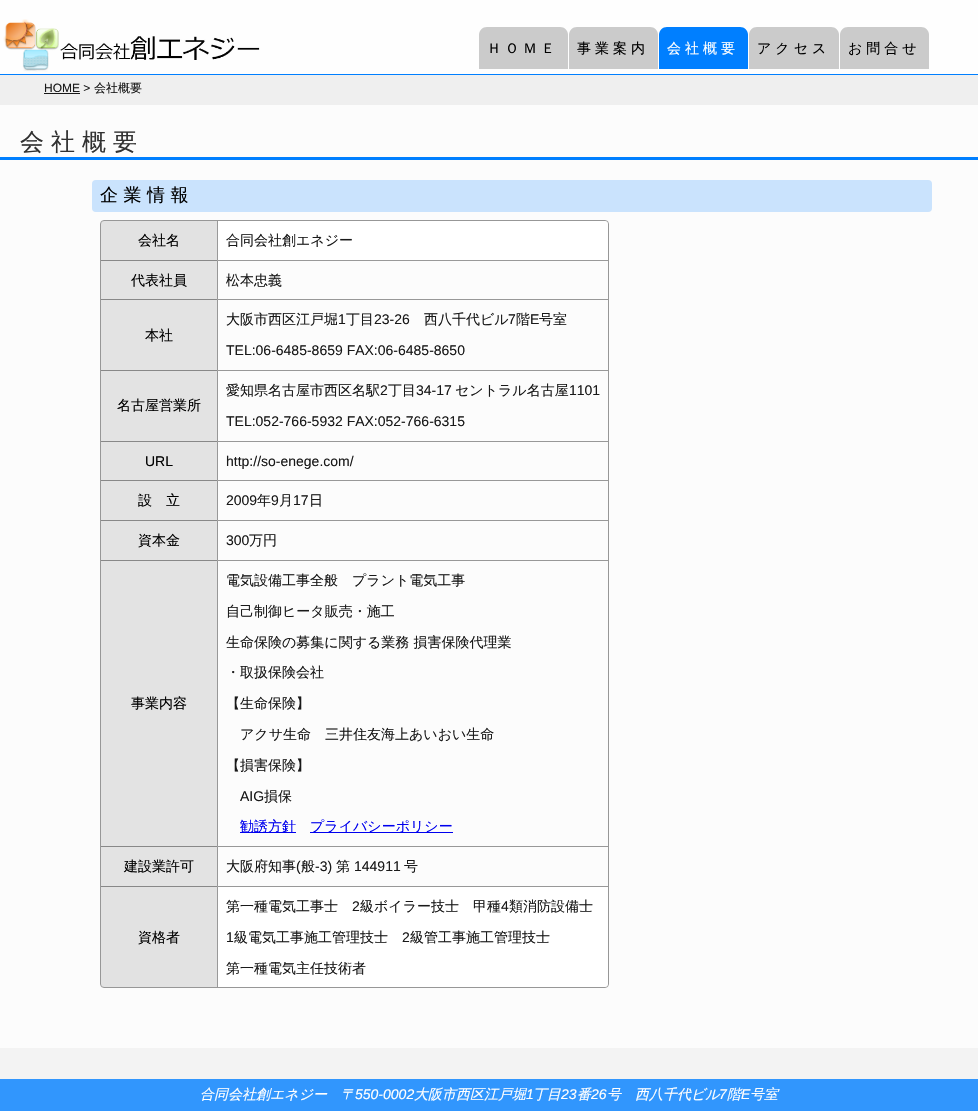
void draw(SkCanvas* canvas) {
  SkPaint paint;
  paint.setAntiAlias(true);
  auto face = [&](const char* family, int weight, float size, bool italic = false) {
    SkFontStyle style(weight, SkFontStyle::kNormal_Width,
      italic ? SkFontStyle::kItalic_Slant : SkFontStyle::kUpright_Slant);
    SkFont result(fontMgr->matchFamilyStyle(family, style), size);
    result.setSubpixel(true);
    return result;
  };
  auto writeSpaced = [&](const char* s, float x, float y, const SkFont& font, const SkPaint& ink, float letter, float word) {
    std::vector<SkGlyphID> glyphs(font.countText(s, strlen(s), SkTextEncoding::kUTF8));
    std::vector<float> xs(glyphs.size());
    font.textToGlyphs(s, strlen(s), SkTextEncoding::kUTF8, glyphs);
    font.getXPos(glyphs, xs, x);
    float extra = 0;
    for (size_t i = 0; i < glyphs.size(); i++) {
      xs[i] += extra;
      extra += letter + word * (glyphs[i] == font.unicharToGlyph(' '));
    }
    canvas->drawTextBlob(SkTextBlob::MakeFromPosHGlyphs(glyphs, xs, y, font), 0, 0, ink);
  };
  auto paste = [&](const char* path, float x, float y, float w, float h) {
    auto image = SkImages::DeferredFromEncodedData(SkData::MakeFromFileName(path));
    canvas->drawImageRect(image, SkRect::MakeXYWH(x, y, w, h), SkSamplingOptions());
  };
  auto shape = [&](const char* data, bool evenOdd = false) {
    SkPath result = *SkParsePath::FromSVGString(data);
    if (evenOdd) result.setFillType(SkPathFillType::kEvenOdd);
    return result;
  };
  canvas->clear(0xfff3f3f3);
  paint.setColor(0xfffefefe);
  canvas->drawRect(SkRect::MakeXYWH(0, 0, 978, 74), paint);
  paint.setColor(0xff007fff);
  canvas->drawRect(SkRect::MakeXYWH(0, 74, 978, 1), paint);
  paste("img/1.png", 3, 19, 56, 53);
  paste("img/2.png", 60, 36, 200, 24);
  paint.setColor(0xffcbcbcb);
  canvas->drawPath(shape("M487 27H560C564.5 27 568 30.5 568 35V69H479V35C479 30.5 482.5 27 487 27Z"), paint);
  canvas->drawPath(shape("M577 27H650C654.5 27 658 30.5 658 35V69H569V35C569 30.5 572.5 27 577 27Z"), paint);
  paint.setColor(0xff007fff);
  canvas->drawPath(shape("M667 27H740C744.5 27 748 30.5 748 35V69H659V35C659 30.5 662.5 27 667 27Z"), paint);
  paint.setColor(0xffcbcbcb);
  canvas->drawPath(shape("M757 27H831C835.5 27 839 30.5 839 35V69H749V35C749 30.5 752.5 27 757 27Z"), paint);
  canvas->drawPath(shape("M848 27H921C925.5 27 929 30.5 929 35V69H840V35C840 30.5 843.5 27 848 27Z"), paint);
  {
    const struct { float x, y, w, h; SkColor color; } items[] = {
      {0, 75, 978, 30, 0xffefefef},
      {44, 93, 36, 1, 0xff181818},
      {0, 105, 978, 943, 0xfffcfcfc},
      {0, 157, 978, 3, 0xff007fff},
    };
    for (auto [x, y, w, h, color] : items) {
      paint.setColor(color);
      canvas->drawRect(SkRect::MakeXYWH(x, y, w, h), paint);
    }
  }
  paint.setColor(0xffcae3fd);
  canvas->drawRoundRect(SkRect::MakeXYWH(92, 180, 840, 32), 4, 4, paint);
  paint.setStroke(true);
  paint.setStrokeWidth(1);
  paint.setColor(0xff979797);
  canvas->drawRoundRect(SkRect::MakeXYWH(100.5f, 220.5f, 508, 767), 3.5f, 3.5f, paint);
  paint.setStroke(false);
  paint.setColor(0x1a000000);
  canvas->drawPath(shape("M104 221H217V261H101V224C101 222.5 102.5 221 104 221Z"), paint);
  paint.setColor(0xff888888);
  canvas->drawRect(SkRect::MakeXYWH(101, 260, 116, 1), paint);
  paint.setColor(0xccffffff);
  canvas->drawPath(shape("M217 221H605C606.5 221 608 222.5 608 224V261H217Z"), paint);
  paint.setColor(0xff999999);
  canvas->drawPath(shape("M608 261H217L218 260H608Z"), paint);
  paint.setColor(0x66000000);
  canvas->drawPath(shape("M217 261V221H218V260Z"), paint);
  paint.setColor(0xffe3e3e3);
  canvas->drawRect(SkRect::MakeXYWH(101, 261, 116, 38), paint);
  paint.setColor(0xff888888);
  canvas->drawRect(SkRect::MakeXYWH(101, 299, 116, 1), paint);
  paint.setColor(0xff989898);
  canvas->drawPath(shape("M608 300H217L218 299H608Z"), paint);
  paint.setColor(0x66000000);
  canvas->drawPath(shape("M217 300V261H218V299Z"), paint);
  paint.setColor(0xffe3e3e3);
  canvas->drawRect(SkRect::MakeXYWH(101, 300, 116, 70), paint);
  paint.setColor(0xff888888);
  canvas->drawRect(SkRect::MakeXYWH(101, 370, 116, 1), paint);
  paint.setColor(0xff989898);
  canvas->drawPath(shape("M608 371H217L218 370H608Z"), paint);
  paint.setColor(0x66000000);
  canvas->drawPath(shape("M217 371V300H218V370Z"), paint);
  paint.setColor(0xffe3e3e3);
  canvas->drawRect(SkRect::MakeXYWH(101, 371, 116, 70), paint);
  paint.setColor(0xff888888);
  canvas->drawRect(SkRect::MakeXYWH(101, 441, 116, 1), paint);
  paint.setColor(0xff989898);
  canvas->drawPath(shape("M608 442H217L218 441H608Z"), paint);
  paint.setColor(0x66000000);
  canvas->drawPath(shape("M217 442V371H218V441Z"), paint);
  paint.setColor(0xffe3e3e3);
  canvas->drawRect(SkRect::MakeXYWH(101, 442, 116, 38), paint);
  paint.setColor(0xff888888);
  canvas->drawRect(SkRect::MakeXYWH(101, 480, 116, 1), paint);
  paint.setColor(0xff989898);
  canvas->drawPath(shape("M608 481H217L218 480H608Z"), paint);
  paint.setColor(0x66000000);
  canvas->drawPath(shape("M217 481V442H218V480Z"), paint);
  paint.setColor(0xffe3e3e3);
  canvas->drawRect(SkRect::MakeXYWH(101, 481, 116, 39), paint);
  paint.setColor(0xff888888);
  canvas->drawRect(SkRect::MakeXYWH(101, 520, 116, 1), paint);
  paint.setColor(0xff989898);
  canvas->drawPath(shape("M608 521H217L218 520H608Z"), paint);
  paint.setColor(0x66000000);
  canvas->drawPath(shape("M217 521V481H218V520Z"), paint);
  paint.setColor(0xffe3e3e3);
  canvas->drawRect(SkRect::MakeXYWH(101, 521, 116, 39), paint);
  paint.setColor(0xff888888);
  canvas->drawRect(SkRect::MakeXYWH(101, 560, 116, 1), paint);
  paint.setColor(0xff989898);
  canvas->drawPath(shape("M608 561H217L218 560H608Z"), paint);
  paint.setColor(0x66000000);
  canvas->drawPath(shape("M217 561V521H218V560Z"), paint);
  paint.setColor(0xffe3e3e3);
  canvas->drawRect(SkRect::MakeXYWH(101, 561, 116, 285), paint);
  paint.setColor(0xff888888);
  canvas->drawRect(SkRect::MakeXYWH(101, 846, 116, 1), paint);
  paint.setColor(0xff989898);
  canvas->drawPath(shape("M608 847H217L218 846H608Z"), paint);
  paint.setColor(0x66000000);
  canvas->drawPath(shape("M217 847V561H218V846Z"), paint);
  {
    const struct { float x, y, w, h; SkColor color; } items[] = {
      {240, 832, 56, 1, 0xff0000ee},
      {310, 832, 143, 1, 0xff0000ee},
      {101, 847, 116, 39, 0xffe3e3e3},
      {101, 886, 116, 1, 0xff888888},
    };
    for (auto [x, y, w, h, color] : items) {
      paint.setColor(color);
      canvas->drawRect(SkRect::MakeXYWH(x, y, w, h), paint);
    }
  }
  paint.setColor(0xff989898);
  canvas->drawPath(shape("M608 887H217L218 886H608Z"), paint);
  paint.setColor(0x66000000);
  canvas->drawPath(shape("M217 887V847H218V886Z"), paint);
  paint.setColor(0x1a000000);
  canvas->drawPath(shape("M101 887H217V987H104C102.5 987 101 985.5 101 984Z"), paint);
  paint.setColor(0xccffffff);
  canvas->drawPath(shape("M217 887H608V984C608 985.5 606.5 987 605 987H217Z"), paint);
  paint.setColor(0xff999999);
  canvas->drawRect(SkRect::MakeXYWH(217, 887, 1, 100), paint);
  paint.setColor(0xff3196fd);
  canvas->drawRect(SkRect::MakeXYWH(0, 1079, 978, 32), paint);
  auto f0 = face("WenQuanYi Zen Hei", 500, 14);
  paint.setColor(0xff000000);
  writeSpaced("ＨＯＭＥ", 487, 53, f0, paint, 4, 0);
  writeSpaced("事業案内", 577, 53, f0, paint, 4, 0);
  paint.setColor(0xffffffff);
  writeSpaced("会社概要", 667, 53, f0, paint, 4, 0);
  paint.setColor(0xff000000);
  writeSpaced("アクセス", 757, 53, f0, paint, 4, 0);
  writeSpaced("お問合せ", 848, 53, f0, paint, 4, 0);
  auto f1 = face("Liberation Sans", 400, 12);
  paint.setColor(0xff191919);
  canvas->drawString("HOME >", 44, 92, f1, paint);
  auto f2 = face("WenQuanYi Zen Hei", 500, 12);
  canvas->drawString("会社概要", 94, 92, f2, paint);
  auto f3 = face("WenQuanYi Zen Hei", 500, 24);
  paint.setColor(0xff323232);
  writeSpaced("会社概要", 20, 150, f3, paint, 7, 0);
  auto f4 = face("WenQuanYi Zen Hei", 500, 18);
  paint.setColor(0xff000000);
  writeSpaced("企業情報", 100, 201, f4, paint, 5.5f, 0);
  canvas->drawString("会社名", 138, 245, f0, paint);
  paint.setColor(0xff191919);
  canvas->drawString("合同会社創エネジー", 226, 245, f0, paint);
  paint.setColor(0xff000000);
  canvas->drawString("代表社員", 131, 285, f0, paint);
  paint.setColor(0xff191919);
  canvas->drawString("松本忠義", 226, 285, f0, paint);
  paint.setColor(0xff000000);
  canvas->drawString("本社", 145, 340, f0, paint);
  paint.setColor(0xff191919);
  canvas->drawString("大阪市西区江戸堀", 226, 324, f0, paint);
  auto f5 = face("Liberation Sans", 400, 14);
  canvas->drawString("1", 338, 324, f5, paint);
  canvas->drawString("丁目", 346, 324, f0, paint);
  canvas->drawString("23-26", 374, 324, f5, paint);
  canvas->drawString("西八千代ビル", 424, 324, f0, paint);
  canvas->drawString("7", 508, 324, f5, paint);
  canvas->drawString("階", 516, 324, f0, paint);
  canvas->drawString("E", 530, 324, f5, paint);
  canvas->drawString("号室", 539, 324, f0, paint);
  canvas->drawString("TEL:06-6485-8659 FAX:06-6485-8650", 226, 355, f5, paint);
  paint.setColor(0xff000000);
  canvas->drawString("名古屋営業所", 117, 410, f0, paint);
  paint.setColor(0xff191919);
  canvas->drawString("愛知県名古屋市西区名駅", 226, 395, f0, paint);
  canvas->drawString("2", 380, 395, f5, paint);
  canvas->drawString("丁目", 388, 395, f0, paint);
  canvas->drawString("34-17", 416, 395, f5, paint);
  canvas->drawString("セントラル名古屋", 455, 395, f0, paint);
  canvas->drawString("1101", 569, 395, f5, paint);
  canvas->drawString("TEL:052-766-5932 FAX:052-766-6315", 226, 426, f5, paint);
  paint.setColor(0xff000000);
  canvas->drawString("URL", 145, 466, f5, paint);
  paint.setColor(0xff191919);
  canvas->drawString("http://so-enege.com/", 226, 466, f5, paint);
  paint.setColor(0xff000000);
  canvas->drawString("設　立", 138, 505, f0, paint);
  paint.setColor(0xff191919);
  canvas->drawString("2009", 226, 505, f5, paint);
  canvas->drawString("年", 257, 505, f0, paint);
  canvas->drawString("9", 271, 505, f5, paint);
  canvas->drawString("月", 279, 505, f0, paint);
  canvas->drawString("17", 293, 505, f5, paint);
  canvas->drawString("日", 309, 505, f0, paint);
  paint.setColor(0xff000000);
  canvas->drawString("資本金", 138, 545, f0, paint);
  paint.setColor(0xff191919);
  canvas->drawString("300", 226, 545, f5, paint);
  canvas->drawString("万円", 249, 545, f0, paint);
  paint.setColor(0xff000000);
  canvas->drawString("事業内容", 131, 708, f0, paint);
  paint.setColor(0xff191919);
  {
    const struct { const char* s; float x, y; } items[] = {
      {"電気設備工事全般　プラント電気工事", 226, 585},
      {"自己制御ヒータ販売・施工", 226, 616},
      {"生命保険の募集に関する業務 損害保険代理業", 226, 647},
      {"・取扱保険会社", 226, 677},
      {"【生命保険】", 226, 708},
      {"アクサ生命　三井住友海上あいおい生命", 240, 739},
      {"【損害保険】", 226, 770},
    };
    for (auto [s, x, y] : items) {
      canvas->drawString(s, x, y, f0, paint);
    }
  }
  canvas->drawString("AIG", 240, 801, f5, paint);
  canvas->drawString("損保", 264, 801, f0, paint);
  paint.setColor(0xff0000ee);
  canvas->drawString("勧誘方針", 240, 831, f0, paint);
  canvas->drawString("プライバシーポリシー", 310, 831, f0, paint);
  paint.setColor(0xff000000);
  canvas->drawString("建設業許可", 124, 871, f0, paint);
  paint.setColor(0xff191919);
  canvas->drawString("大阪府知事", 226, 871, f0, paint);
  canvas->drawString("(", 296, 871, f5, paint);
  canvas->drawString("般", 301, 871, f0, paint);
  canvas->drawString("-3)", 315, 871, f5, paint);
  canvas->drawString("第", 336, 871, f0, paint);
  canvas->drawString("144911", 354, 871, f5, paint);
  canvas->drawString("号", 404, 871, f0, paint);
  paint.setColor(0xff000000);
  canvas->drawString("資格者", 138, 942, f0, paint);
  paint.setColor(0xff191919);
  canvas->drawString("第一種電気工事士", 226, 911, f0, paint);
  canvas->drawString("2", 352, 911, f5, paint);
  canvas->drawString("級ボイラー技士　甲種", 360, 911, f0, paint);
  canvas->drawString("4", 501, 911, f5, paint);
  canvas->drawString("類消防設備士", 509, 911, f0, paint);
  canvas->drawString("1", 226, 942, f5, paint);
  canvas->drawString("級電気工事施工管理技士", 234, 942, f0, paint);
  canvas->drawString("2", 402, 942, f5, paint);
  canvas->drawString("級管工事施工管理技士", 410, 942, f0, paint);
  canvas->drawString("第一種電気主任技術者", 226, 973, f0, paint);
  auto f6 = face("WenQuanYi Zen Hei", 500, 14, true);
  paint.setColor(0xffffffff);
  canvas->drawString("合同会社創エネジー　〒", 200, 1099, f6, paint);
  auto f7 = face("Liberation Sans", 400, 14, true);
  canvas->drawString("550-0002", 355, 1099, f7, paint);
  canvas->drawString("大阪市西区江戸堀", 414, 1099, f6, paint);
  canvas->drawString("1", 526, 1099, f7, paint);
  canvas->drawString("丁目", 533, 1099, f6, paint);
  canvas->drawString("23", 561, 1099, f7, paint);
  canvas->drawString("番", 577, 1099, f6, paint);
  canvas->drawString("26", 591, 1099, f7, paint);
  canvas->drawString("号　西八千代ビル", 607, 1099, f6, paint);
  canvas->drawString("7", 719, 1099, f7, paint);
  canvas->drawString("階", 727, 1099, f6, paint);
  canvas->drawString("E", 741, 1099, f7, paint);
  canvas->drawString("号室", 750, 1099, f6, paint);
}
